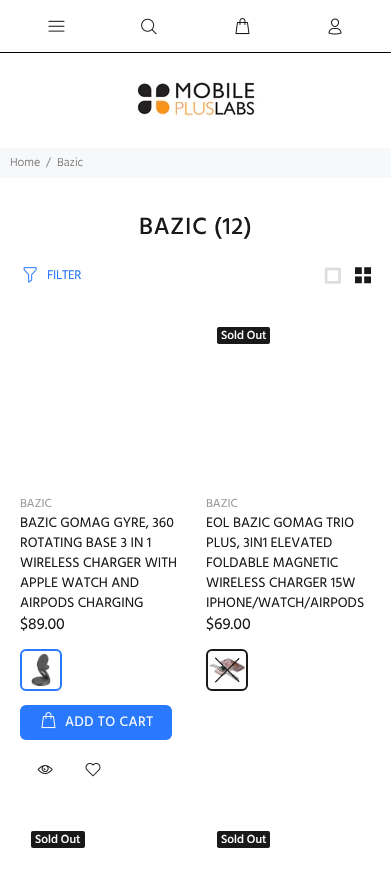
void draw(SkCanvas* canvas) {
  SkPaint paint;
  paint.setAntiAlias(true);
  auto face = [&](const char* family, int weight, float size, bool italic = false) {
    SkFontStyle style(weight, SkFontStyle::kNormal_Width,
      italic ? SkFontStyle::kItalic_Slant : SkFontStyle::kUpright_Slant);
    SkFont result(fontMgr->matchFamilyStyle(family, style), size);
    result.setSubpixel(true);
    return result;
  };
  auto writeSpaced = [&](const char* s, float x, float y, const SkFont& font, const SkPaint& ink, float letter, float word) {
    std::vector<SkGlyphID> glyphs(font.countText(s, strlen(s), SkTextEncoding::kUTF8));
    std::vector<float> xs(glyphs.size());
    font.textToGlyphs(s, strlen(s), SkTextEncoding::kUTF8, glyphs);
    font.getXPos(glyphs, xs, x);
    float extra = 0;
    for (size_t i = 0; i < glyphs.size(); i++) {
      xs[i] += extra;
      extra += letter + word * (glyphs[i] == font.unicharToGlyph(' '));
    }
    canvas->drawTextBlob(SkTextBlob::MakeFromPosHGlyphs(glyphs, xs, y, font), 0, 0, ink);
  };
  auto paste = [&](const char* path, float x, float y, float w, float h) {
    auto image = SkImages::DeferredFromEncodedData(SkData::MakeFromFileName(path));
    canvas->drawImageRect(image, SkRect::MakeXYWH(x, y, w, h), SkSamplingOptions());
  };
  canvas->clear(0xffffffff);
  paste("img/1.png", 48, 20, 17, 12);
  paste("img/2.png", 141, 18, 16, 17);
  paste("img/3.png", 235, 18, 15, 17);
  paste("img/4.png", 328, 18, 14, 17);
  paint.setColor(0xff000000);
  canvas->drawRect(SkRect::MakeXYWH(0, 52, 391, 1), paint);
  paste("img/5.png", 137, 80, 120, 37);
  paint.setColor(0xfff7f8fa);
  canvas->drawRect(SkRect::MakeXYWH(0, 148, 391, 30), paint);
  paste("img/6.png", 23, 267, 14, 16);
  paste("img/7.png", 324, 267, 17, 17);
  paste("img/8.png", 355, 267, 16, 17);
  paste("img/9.png", 31, 653, 20, 34);
  paint.setStroke(true);
  paint.setStrokeWidth(2);
  paint.setColor(0xff2879fe);
  canvas->drawRoundRect(SkRect::MakeXYWH(21, 650, 40, 40), 5, 5, paint);
  paint.setStroke(false);
  canvas->drawRoundRect(SkRect::MakeXYWH(20, 705, 152, 35), 6, 6, paint);
  paste("img/10.png", 41, 712, 15, 17);
  paste("img/11.png", 37, 765, 16, 10);
  paste("img/12.png", 85, 763, 16, 14);
  paint.setColor(0xff191919);
  canvas->drawRoundRect(SkRect::MakeXYWH(217, 327, 53, 17), 2, 2, paint);
  paste("img/13.png", 209, 658, 36, 23);
  paint.setStroke(true);
  canvas->drawRoundRect(SkRect::MakeXYWH(207, 650, 40, 40), 5, 5, paint);
  paste("img/14.png", 215, 657, 25, 26);
  paint.setStroke(false);
  canvas->drawRoundRect(SkRect::MakeXYWH(31, 831, 54, 17), 2, 2, paint);
  canvas->drawRoundRect(SkRect::MakeXYWH(217, 831, 53, 17), 2, 2, paint);
  auto f0 = face("Hind", 300, 12);
  paint.setColor(0xff777777);
  {
    const struct { const char* s; float x, y; } items[] = {
      {"Home", 10, 166},
      {"/", 46, 166},
      {"Bazic", 57, 166},
    };
    for (auto [s, x, y] : items) {
      canvas->drawString(s, x, y, f0, paint);
    }
  }
  auto f1 = face("Hind", 500, 24);
  paint.setColor(0xff191919);
  writeSpaced("BAZIC (12)", 139, 234, f1, paint, 0.75f, 0);
  auto f2 = face("Hind", 400, 13);
  paint.setColor(0xff2879fe);
  writeSpaced("FILTER", 47, 279, f2, paint, -0.25f, 0);
  auto f3 = face("Hind", 400, 12);
  paint.setColor(0xff999999);
  canvas->drawString("BAZIC", 20, 507, f3, paint);
  auto f4 = face("Hind", 400, 14);
  paint.setColor(0xff191919);
  {
    const struct { const char* s; float x, y; } items[] = {
      {"BAZIC GOMAG GYRE, 360", 20, 527},
      {"ROTATING BASE 3 IN 1", 20, 547},
      {"WIRELESS CHARGER WITH", 20, 567},
      {"APPLE WATCH AND", 20, 587},
      {"AIRPODS CHARGING", 20, 607},
    };
    for (auto [s, x, y] : items) {
      canvas->drawString(s, x, y, f4, paint);
    }
  }
  auto f5 = face("Hind", 400, 16);
  canvas->drawString("$89.00", 20, 629, f5, paint);
  paint.setColor(0xffffffff);
  writeSpaced("ADD TO CART", 65, 726, f4, paint, 0.5f, 0);
  auto f6 = face("Hind", 500, 12);
  canvas->drawString("Sold Out", 221, 339, f6, paint);
  paint.setColor(0xff999999);
  canvas->drawString("BAZIC", 206, 507, f3, paint);
  paint.setColor(0xff191919);
  {
    const struct { const char* s; float x, y; } items[] = {
      {"EOL BAZIC GOMAG TRIO", 206, 527},
      {"PLUS, 3IN1 ELEVATED", 206, 547},
      {"FOLDABLE MAGNETIC", 206, 567},
      {"WIRELESS CHARGER 15W", 206, 587},
      {"IPHONE/WATCH/AIRPODS", 206, 607},
    };
    for (auto [s, x, y] : items) {
      canvas->drawString(s, x, y, f4, paint);
    }
  }
  canvas->drawString("$69.00", 206, 629, f5, paint);
  paint.setColor(0xffffffff);
  canvas->drawString("Sold Out", 35, 843, f6, paint);
  canvas->drawString("Sold Out", 221, 843, f6, paint);
}
